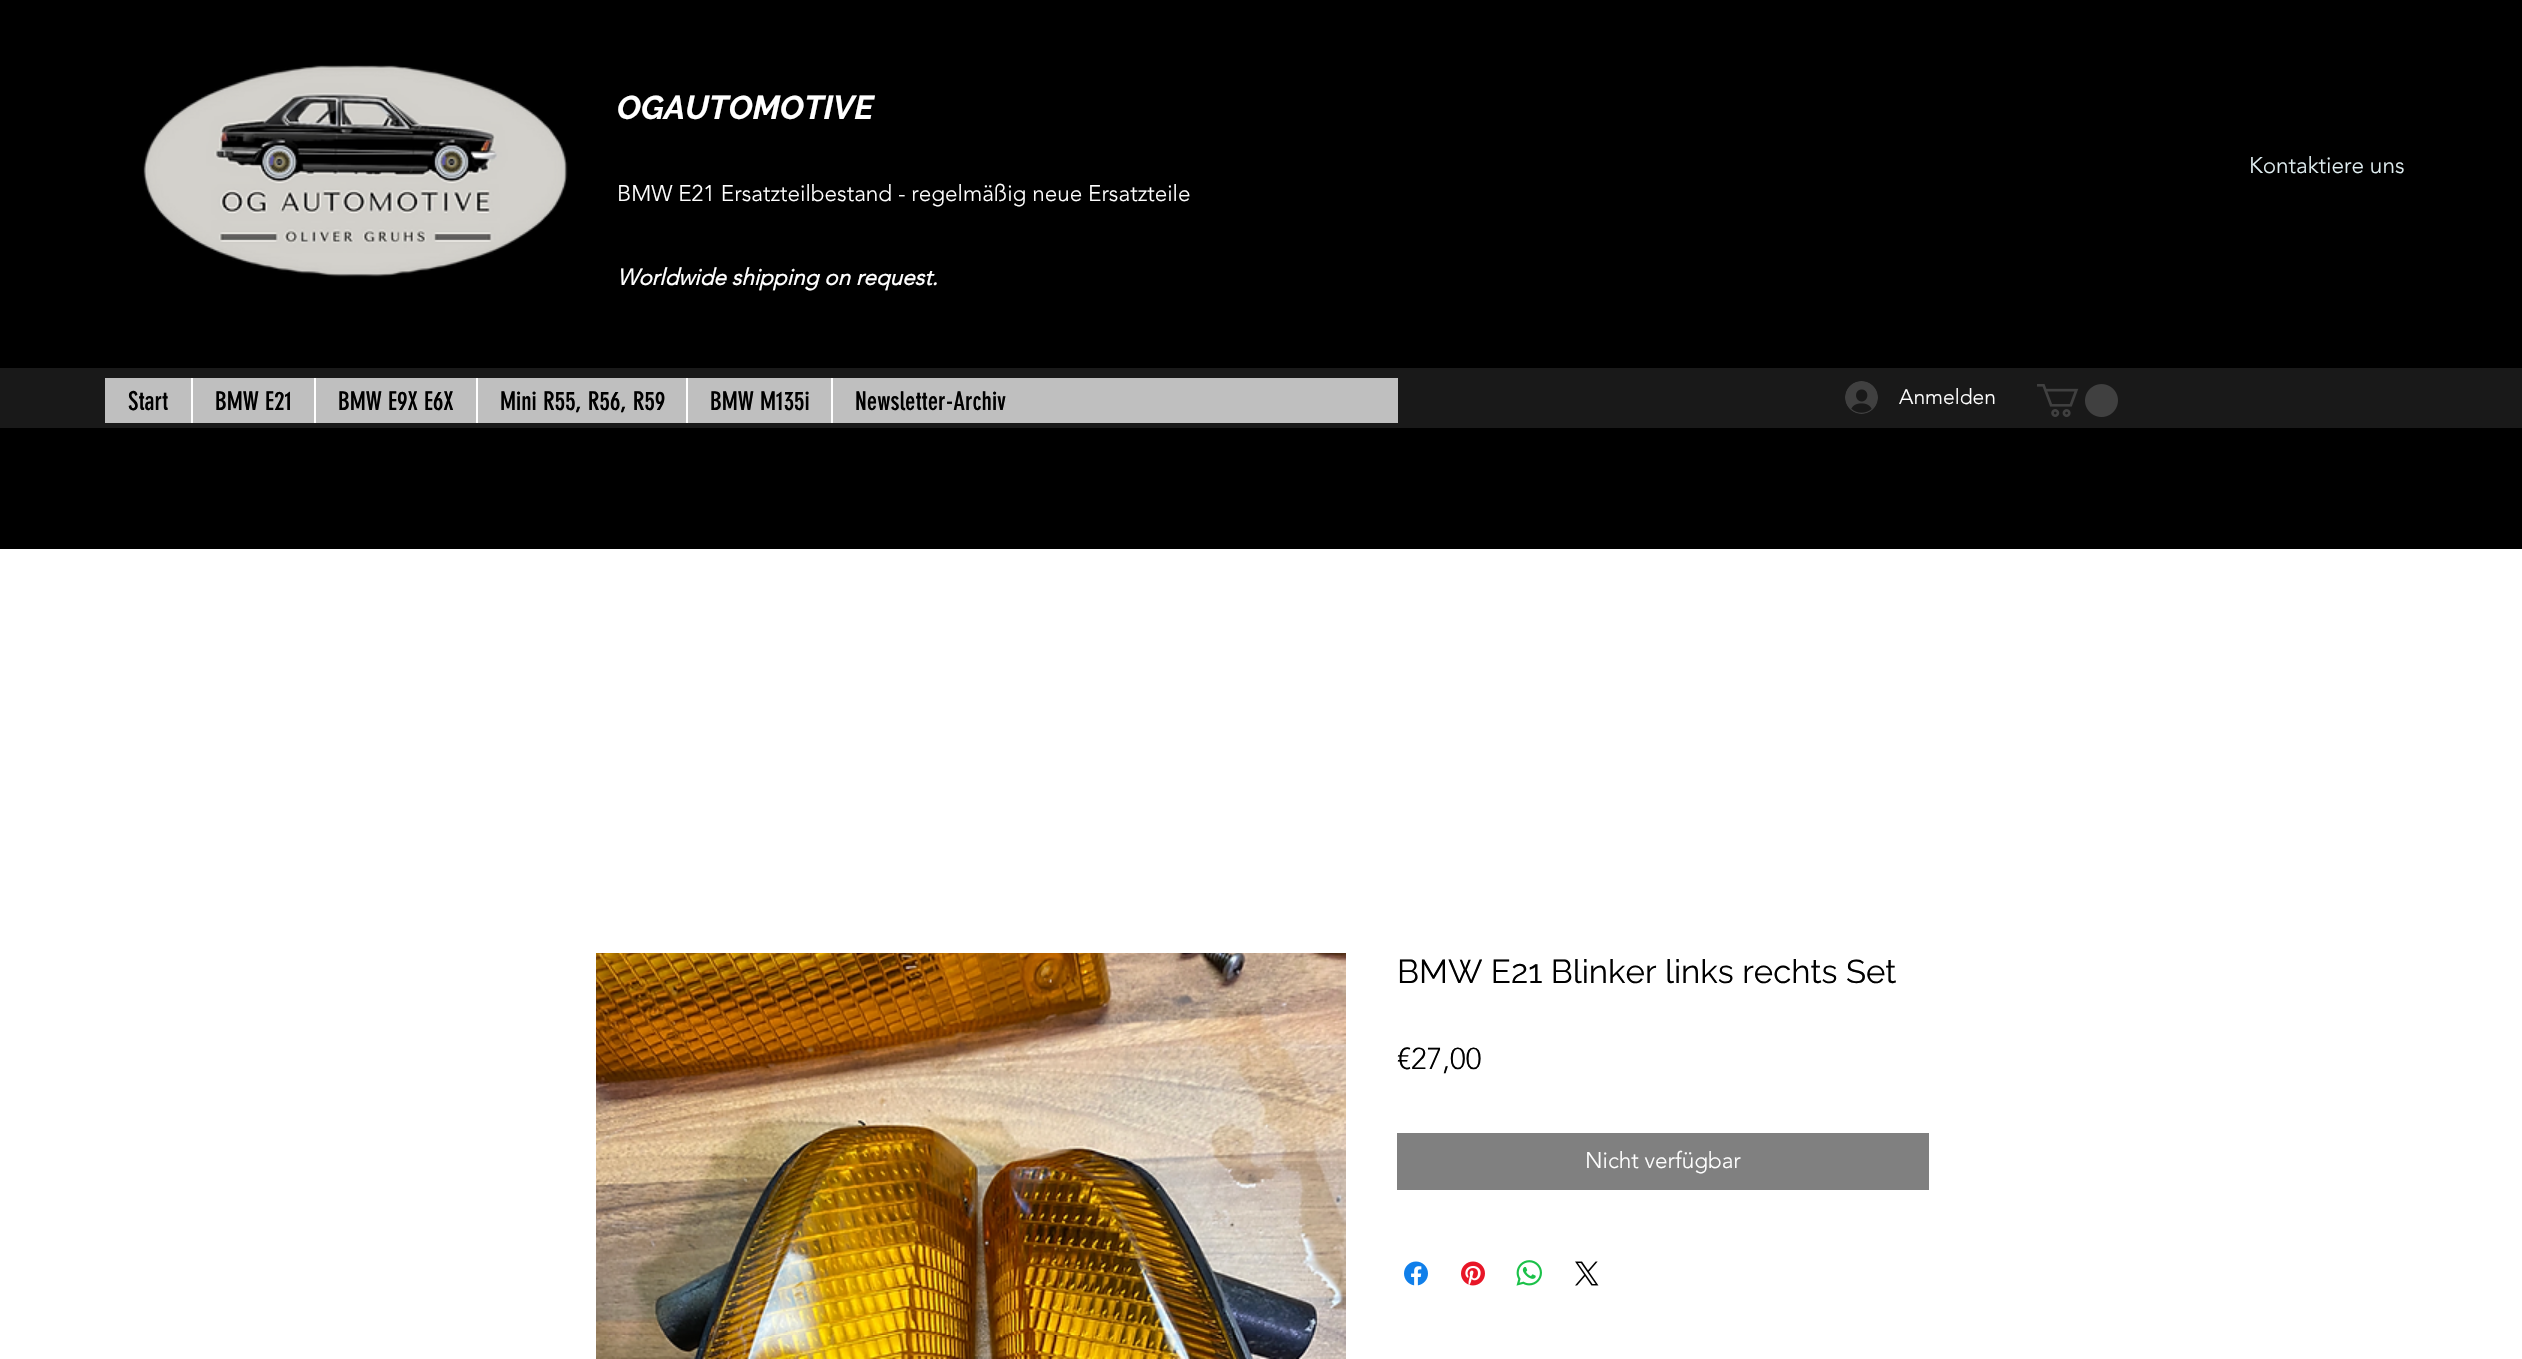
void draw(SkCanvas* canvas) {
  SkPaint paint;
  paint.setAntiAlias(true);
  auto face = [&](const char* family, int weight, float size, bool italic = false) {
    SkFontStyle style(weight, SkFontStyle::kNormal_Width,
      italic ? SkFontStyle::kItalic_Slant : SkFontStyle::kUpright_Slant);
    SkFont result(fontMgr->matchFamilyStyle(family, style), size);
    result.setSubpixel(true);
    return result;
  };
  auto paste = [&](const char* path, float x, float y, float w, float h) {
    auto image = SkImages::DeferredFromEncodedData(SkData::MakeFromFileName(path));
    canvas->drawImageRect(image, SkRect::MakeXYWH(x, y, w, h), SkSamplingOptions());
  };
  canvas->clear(0xffffffff);
  paint.setColor(0xff000000);
  canvas->drawRect(SkRect::MakeXYWH(0, 0, 2522, 549), paint);
  paste("img/1.png", 143, 65, 425, 212);
  {
    const struct { float x, y, w, h; SkColor color; } items[] = {
      {0, 368, 2522, 60, 0xff191919},
      {105, 378, 1293, 45, 0xffbfbfbf},
      {191, 378, 2, 45, 0xffffffff},
      {314, 378, 2, 45, 0xffffffff},
      {476, 378, 2, 45, 0xffffffff},
      {686, 378, 2, 45, 0xffffffff},
      {831, 378, 2, 45, 0xffffffff},
    };
    for (auto [x, y, w, h, color] : items) {
      paint.setColor(color);
      canvas->drawRect(SkRect::MakeXYWH(x, y, w, h), paint);
    }
  }
  paste("img/2.png", 1845, 381, 33, 33);
  paste("img/3.png", 2037, 384, 81, 33);
  paste("img/4.png", 596, 953, 750, 406);
  paint.setColor(0xff808080);
  canvas->drawRect(SkRect::MakeXYWH(1397, 1133, 532, 57), paint);
  paste("img/5.png", 1404, 1261, 24, 25);
  paste("img/6.png", 1461, 1261, 24, 25);
  paste("img/7.png", 1516, 1260, 26, 26);
  paste("img/8.png", 1575, 1261, 24, 25);
  auto f0 = face("Raleway", 700, 33, true);
  paint.setColor(0xffffffff);
  canvas->drawString("OGAUTOMOTIVE", 617, 119, f0, paint);
  auto f1 = face("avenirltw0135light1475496", 300, 22.5f);
  canvas->drawString("BMW E21 Ersatzteilbestand - regelmäßig neue Ersatzteile", 617, 201, f1, paint);
  auto f2 = face("avenirltw0135light1475496", 700, 22.5f, true);
  canvas->drawString("Worldwide shipping on request.", 617, 285, f2, paint);
  paint.setColor(0xffe1eff2);
  canvas->drawString("Kontaktiere uns", 2249, 173, f1, paint);
  auto f3 = face("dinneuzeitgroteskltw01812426", 400, 25.5f);
  paint.setColor(0xff000000);
  {
    const struct { const char* s; float x, y; } items[] = {
      {"Start", 128, 410},
      {"BMW E21", 215, 410},
      {"BMW E9X E6X", 338, 410},
      {"Mini R55, R56, R59", 500, 410},
      {"BMW M135i", 710, 410},
      {"Newsletter-Archiv", 855, 410},
    };
    for (auto [s, x, y] : items) {
      canvas->drawString(s, x, y, f3, paint);
    }
  }
  auto f4 = face("avenirltw0135light1475496", 300, 21);
  paint.setColor(0xffffffff);
  canvas->drawString("Anmelden", 1899, 404, f4, paint);
  auto f5 = face("Raleway", 400, 33);
  paint.setColor(0xff000000);
  canvas->drawString("BMW E21 Blinker links rechts Set", 1397, 983, f5, paint);
  auto f6 = face("avenirltw0135light1475496", 300, 30);
  canvas->drawString("€27,00", 1397, 1069, f6, paint);
  paint.setColor(0xffffffff);
  canvas->drawString("Nicht verfügbar", 1585, 1168, f1, paint);
}
